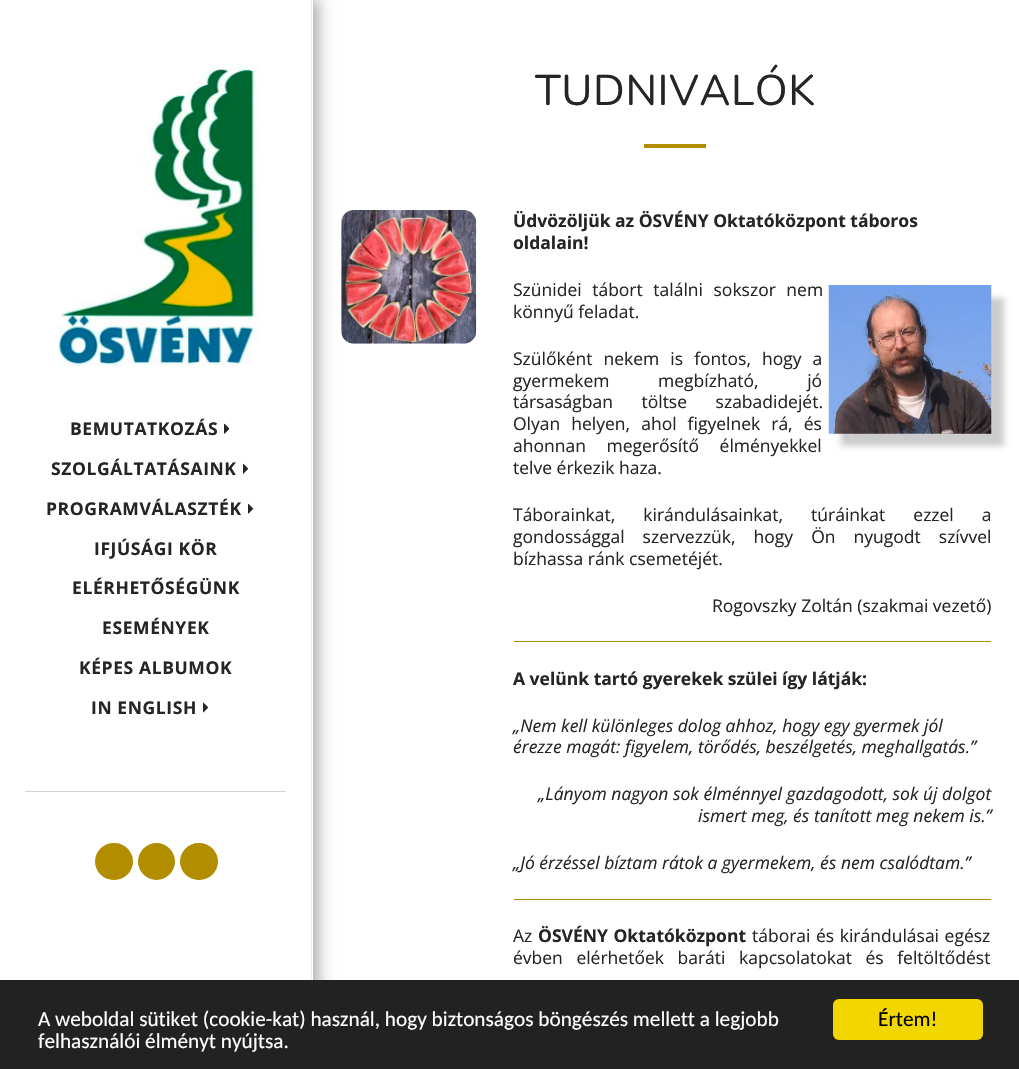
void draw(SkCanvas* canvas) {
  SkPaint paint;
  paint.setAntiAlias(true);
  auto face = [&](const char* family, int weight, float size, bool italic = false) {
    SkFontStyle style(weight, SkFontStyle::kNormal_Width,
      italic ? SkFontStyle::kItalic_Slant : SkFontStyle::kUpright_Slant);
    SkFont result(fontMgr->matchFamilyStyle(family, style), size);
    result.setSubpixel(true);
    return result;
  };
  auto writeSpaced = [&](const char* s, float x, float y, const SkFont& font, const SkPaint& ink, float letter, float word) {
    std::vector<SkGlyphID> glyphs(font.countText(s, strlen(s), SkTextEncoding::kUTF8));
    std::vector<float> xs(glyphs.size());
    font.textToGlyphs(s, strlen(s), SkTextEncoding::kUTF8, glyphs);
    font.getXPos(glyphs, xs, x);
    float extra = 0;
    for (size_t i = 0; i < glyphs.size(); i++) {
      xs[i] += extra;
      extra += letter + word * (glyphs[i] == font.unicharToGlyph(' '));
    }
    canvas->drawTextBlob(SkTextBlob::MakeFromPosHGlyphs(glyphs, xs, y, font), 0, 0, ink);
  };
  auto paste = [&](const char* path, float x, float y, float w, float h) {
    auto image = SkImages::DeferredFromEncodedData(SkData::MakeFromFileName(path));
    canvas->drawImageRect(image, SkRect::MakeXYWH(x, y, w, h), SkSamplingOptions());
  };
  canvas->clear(0xffffffff);
  paste("img/5.png", 341, 210, 136, 134);
  paint.setColor(0x59000000);
  paint.setMaskFilter(SkMaskFilter::MakeBlur(kNormal_SkBlurStyle, 7.5f));
  canvas->drawRect(SkRect::MakeXYWH(0, -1, 318, 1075), paint);
  paint.setMaskFilter(nullptr);
  paint.setColor(0xffffffff);
  canvas->drawRect(SkRect::MakeXYWH(0, 0, 313, 980), paint);
  paint.setColor(0xffebebeb);
  canvas->drawRect(SkRect::MakeXYWH(311, 0, 1, 980), paint);
  paste("img/1.png", 58, 64, 203, 303);
  paste("img/2.png", 224, 423, 5, 11);
  paste("img/3.png", 243, 463, 5, 11);
  paste("img/3.png", 248, 503, 5, 11);
  paste("img/4.png", 203, 702, 6, 11);
  paint.setColor(0xffd3d3d3);
  canvas->drawRect(SkRect::MakeXYWH(25, 791, 261, 1), paint);
  paint.setColor(0xffb28d00);
  canvas->drawRoundRect(SkRect::MakeXYWH(95, 843, 38, 37), 18.5f, 18.5f, paint);
  canvas->drawCircle(156.5f, 861.5f, 18.5f, paint);
  canvas->drawRoundRect(SkRect::MakeXYWH(180, 843, 38, 37), 18.5f, 18.5f, paint);
  canvas->drawRect(SkRect::MakeXYWH(644, 144, 62, 4), paint);
  paint.setColor(0xffcccccc);
  paint.setMaskFilter(SkMaskFilter::MakeBlur(kNormal_SkBlurStyle, 3));
  canvas->drawRect(SkRect::MakeXYWH(841, 298, 163, 148), paint);
  paint.setMaskFilter(nullptr);
  paste("img/6.png", 828, 285, 164, 149);
  {
    const struct { float x, y, w, h; SkColor color; } items[] = {
      {514, 641, 477, 1, 0xffb28d00},
      {514, 899, 477, 1, 0xffb28d00},
      {0, 980, 1019, 89, 0xff222222},
    };
    for (auto [x, y, w, h, color] : items) {
      paint.setColor(color);
      canvas->drawRect(SkRect::MakeXYWH(x, y, w, h), paint);
    }
  }
  paint.setColor(0xfff1d600);
  canvas->drawRoundRect(SkRect::MakeXYWH(833, 999, 150, 41), 6, 6, paint);
  auto f0 = face("Open Sans", 700, 17.5f);
  paint.setColor(0xff252525);
  {
    const struct { const char* s; float x, y; } items[] = {
      {"BEMUTATKOZÁS", 70, 435},
      {"SZOLGÁLTATÁSAINK", 51, 475},
      {"PROGRAMVÁLASZTÉK", 46, 515},
      {"IFJÚSÁGI KÖR", 94, 555},
      {"ELÉRHETŐSÉGÜNK", 72, 594},
      {"ESEMÉNYEK", 102, 634},
      {"KÉPES ALBUMOK", 79, 674},
      {"IN ENGLISH", 91, 714},
    };
    for (auto [s, x, y] : items) {
      writeSpaced(s, x, y, f0, paint, 0.6f, 0);
    }
  }
  auto f1 = face("Nunito", 400, 42.75f);
  writeSpaced("TUDNIVALÓK", 535, 105, f1, paint, 0.6f, 0);
  canvas->drawString("Üdvözöljük az ÖSVÉNY Oktatóközpont táboros", 513, 227, f0, paint);
  canvas->drawString("oldalain!", 513, 249, f0, paint);
  auto f2 = face("Open Sans", 400, 17.5f);
  writeSpaced("Szünidei tábort találni sokszor nem", 513, 296, f2, paint, 0, 6);
  canvas->drawString("könnyű feladat.", 513, 318, f2, paint);
  writeSpaced("Szülőként nekem is fontos, hogy a", 513, 365, f2, paint, 0, 6.5f);
  writeSpaced("gyermekem megbízható, jó", 513, 387, f2, paint, 0, 44);
  writeSpaced("társaságban töltse szabadidejét.", 513, 408, f2, paint, 0, 24);
  writeSpaced("Olyan helyen, ahol figyelnek rá, és", 513, 430, f2, paint, 0, 6.5f);
  writeSpaced("ahonnan megerősítő élményekkel", 513, 452, f2, paint, 0, 16);
  canvas->drawString("telve érkezik haza.", 513, 474, f2, paint);
  writeSpaced("Táborainkat, kirándulásainkat, túráinkat ezzel a", 513, 521, f2, paint, 0, 23.5f);
  writeSpaced("gondossággal szervezzük, hogy Ön nyugodt szívvel", 513, 543, f2, paint, 0, 13.5f);
  canvas->drawString("bízhassa ránk csemetéjét.", 513, 565, f2, paint);
  canvas->drawString("Rogovszky Zoltán (szakmai vezető)", 712, 612, f2, paint);
  canvas->drawString("A velünk tartó gyerekek szülei így látják:", 513, 685, f0, paint);
  auto f3 = face("Open Sans", 400, 17.5f, true);
  {
    const struct { const char* s; float x, y; } items[] = {
      {"„Nem kell különleges dolog ahhoz, hogy egy gyermek jól", 513, 732},
      {"érezze magát: figyelem, törődés, beszélgetés, meghallgatás.”", 513, 753},
      {"„Lányom nagyon sok élménnyel gazdagodott, sok új dolgot", 538, 800},
      {"ismert meg, és tanított meg nekem is.”", 698, 822},
      {"„Jó érzéssel bíztam rátok a gyermekem, és nem csalódtam.”", 513, 869},
    };
    for (auto [s, x, y] : items) {
      canvas->drawString(s, x, y, f3, paint);
    }
  }
  canvas->drawString("Az", 513, 942, f2, paint);
  writeSpaced("ÖSVÉNY Oktatóközpont", 538, 942, f0, paint, 0, 1);
  writeSpaced("táborai és kirándulásai egész", 752, 942, f2, paint, 0, 1);
  writeSpaced("évben elérhetőek baráti kapcsolatokat és feltöltődést", 513, 964, f2, paint, 0, 9);
  auto f4 = face("Carlito", 400, 21.25f);
  paint.setColor(0xffffffff);
  canvas->drawString("A weboldal sütiket (cookie-kat) használ, hogy biztonságos böngészés mellett a legjobb", 38, 1026, f4, paint);
  canvas->drawString("felhasználói élményt nyújtsa.", 38, 1048, f4, paint);
  paint.setColor(0xff000000);
  canvas->drawString("Értem!", 878, 1026, f4, paint);
}
